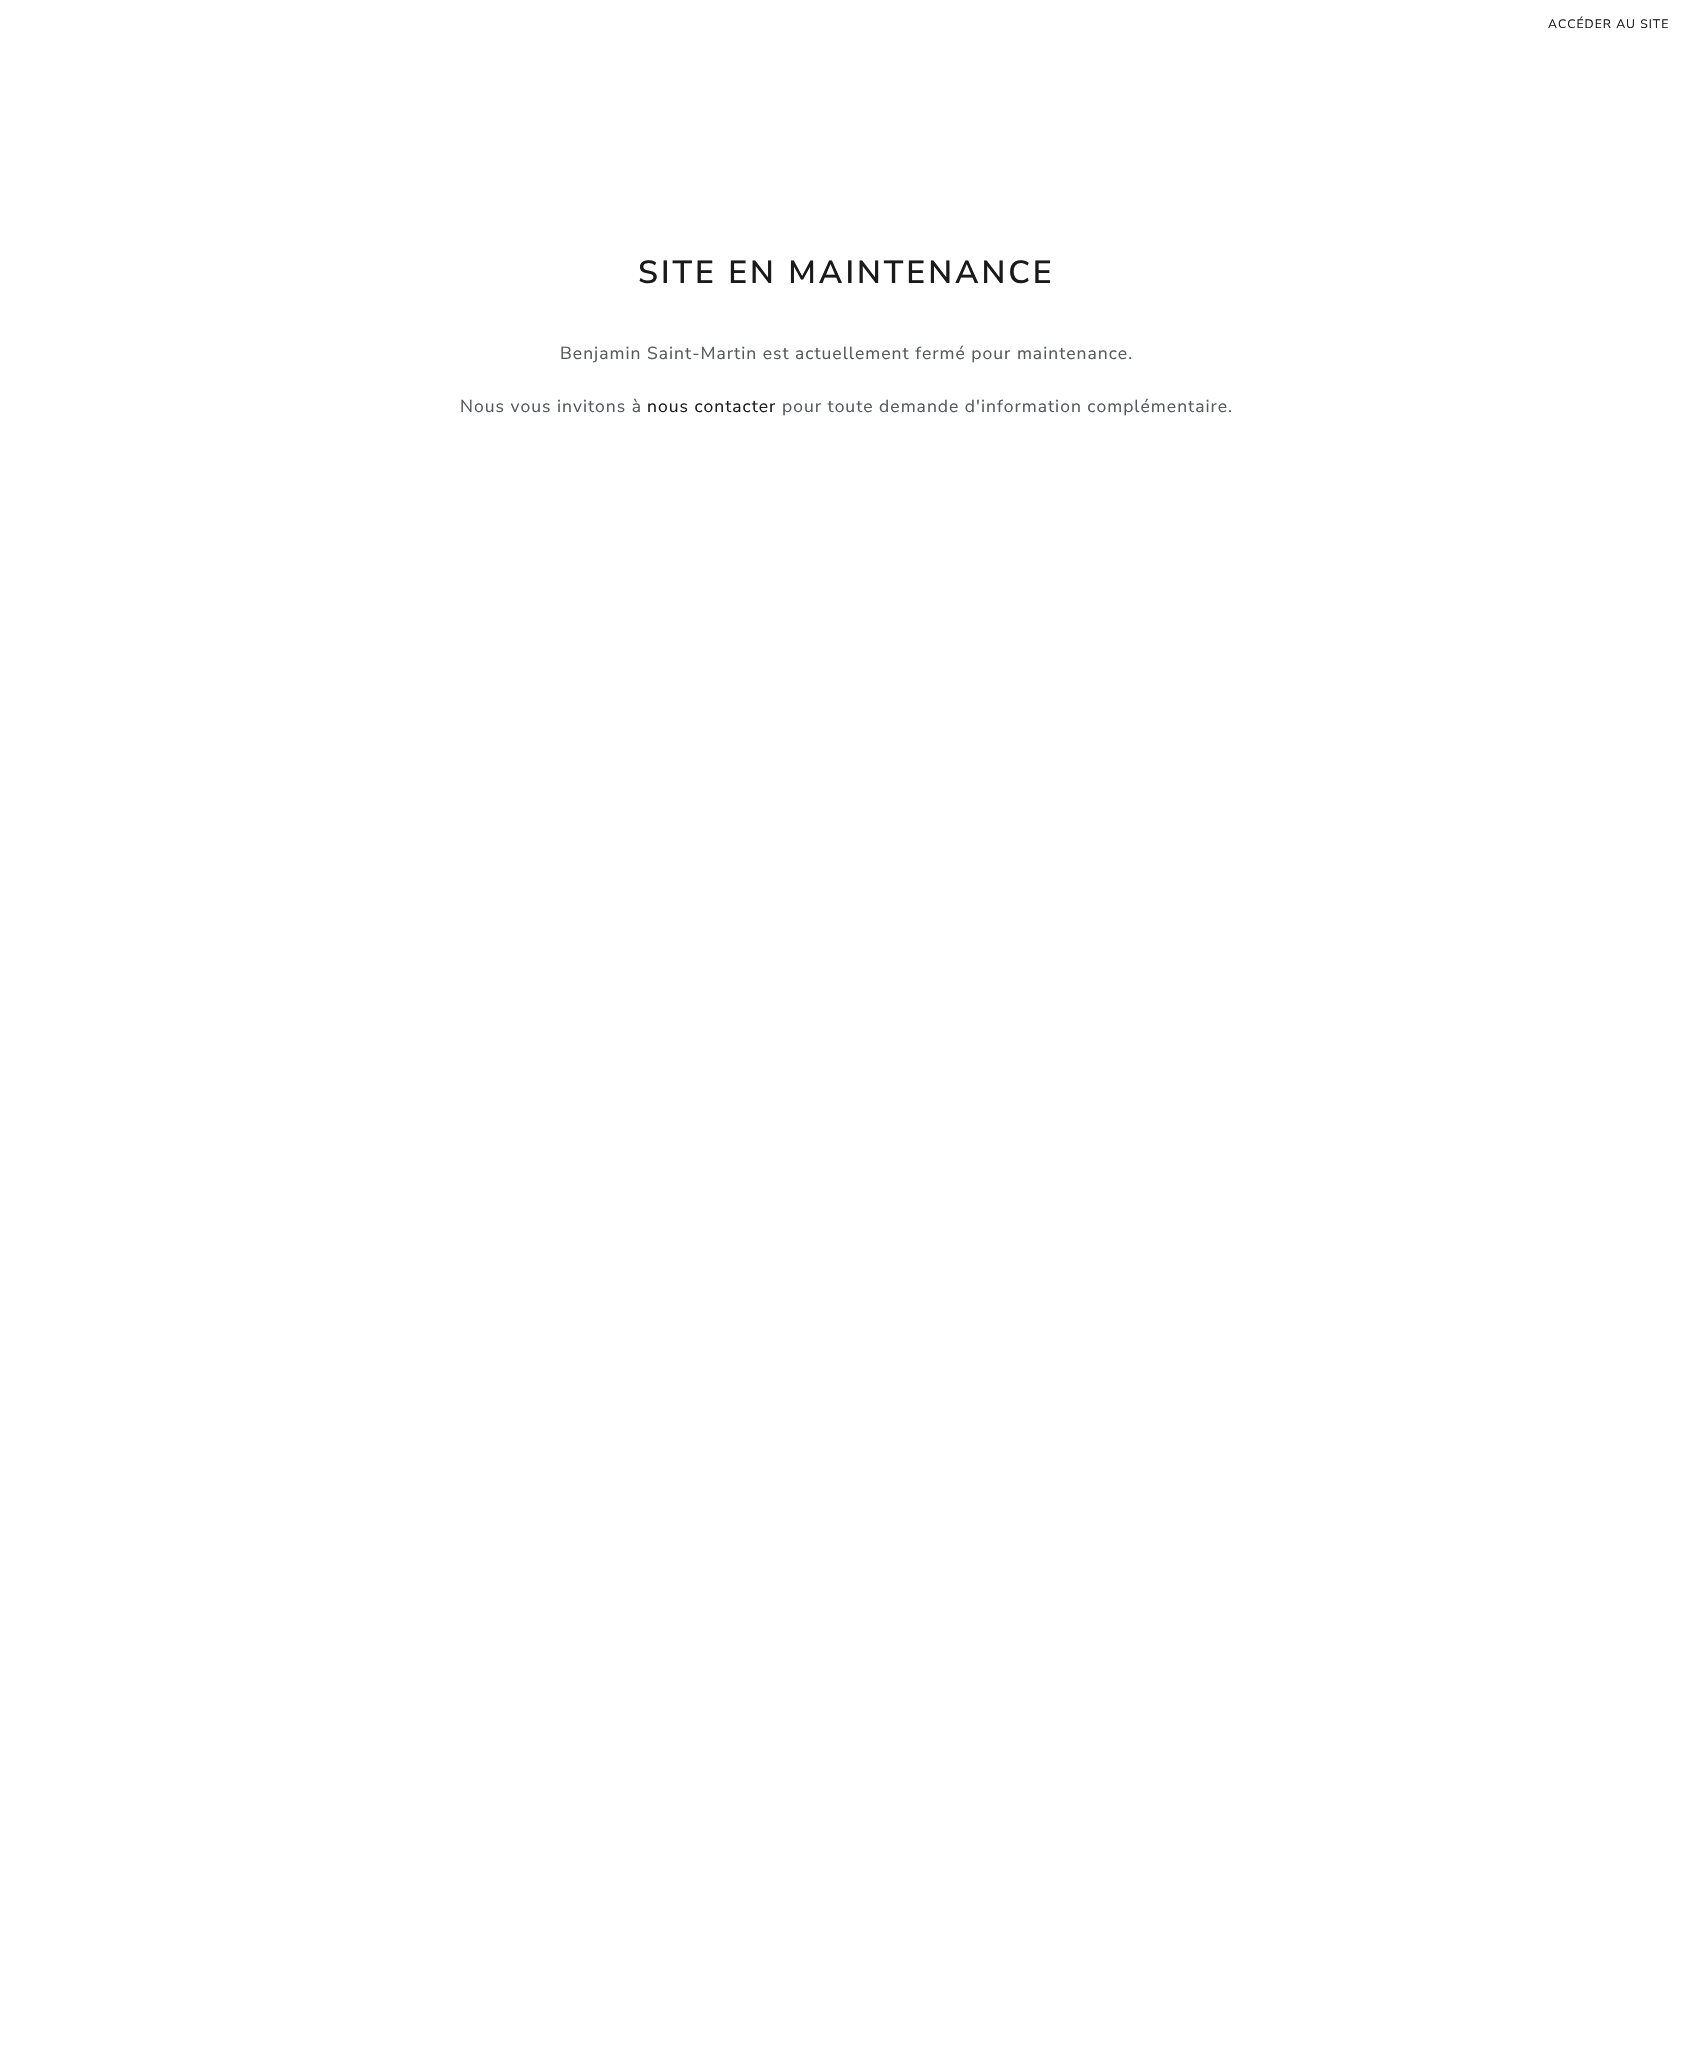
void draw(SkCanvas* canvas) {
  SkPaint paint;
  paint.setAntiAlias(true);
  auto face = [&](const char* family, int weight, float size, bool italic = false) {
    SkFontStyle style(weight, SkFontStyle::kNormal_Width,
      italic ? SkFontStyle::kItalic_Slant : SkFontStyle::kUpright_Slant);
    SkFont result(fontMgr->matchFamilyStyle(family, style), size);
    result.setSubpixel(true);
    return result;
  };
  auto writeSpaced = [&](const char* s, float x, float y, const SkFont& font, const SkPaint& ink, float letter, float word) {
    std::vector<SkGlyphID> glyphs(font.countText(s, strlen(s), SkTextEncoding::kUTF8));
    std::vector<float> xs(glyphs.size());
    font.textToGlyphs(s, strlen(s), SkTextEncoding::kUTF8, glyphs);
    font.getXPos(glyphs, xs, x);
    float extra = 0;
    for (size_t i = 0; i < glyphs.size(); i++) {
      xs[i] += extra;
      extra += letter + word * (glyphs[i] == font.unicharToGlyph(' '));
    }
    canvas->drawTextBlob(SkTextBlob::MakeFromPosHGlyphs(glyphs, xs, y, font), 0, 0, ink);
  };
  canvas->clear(0xffffffff);
  auto f0 = face("Nunito Sans", 400, 12.25f);
  paint.setColor(0xff1a1a1a);
  writeSpaced("ACCÉDER AU SITE", 1548, 28, f0, paint, 1, 0);
  auto f1 = face("Nunito Sans", 600, 32);
  writeSpaced("SITE EN MAINTENANCE", 638, 283, f1, paint, 3, 0);
  auto f2 = face("Nunito Sans", 400, 17.5f);
  paint.setColor(0xff55595c);
  writeSpaced("Benjamin Saint-Martin est actuellement fermé pour maintenance.", 560, 359, f2, paint, 1, 0);
  writeSpaced("Nous vous invitons à", 460, 412, f2, paint, 1, 0);
  paint.setColor(0xff1a1a1a);
  writeSpaced("nous contacter", 647, 412, f2, paint, 1, 0);
  paint.setColor(0xff55595c);
  writeSpaced("pour toute demande d'information complémentaire.", 782, 412, f2, paint, 1, 0);
}
